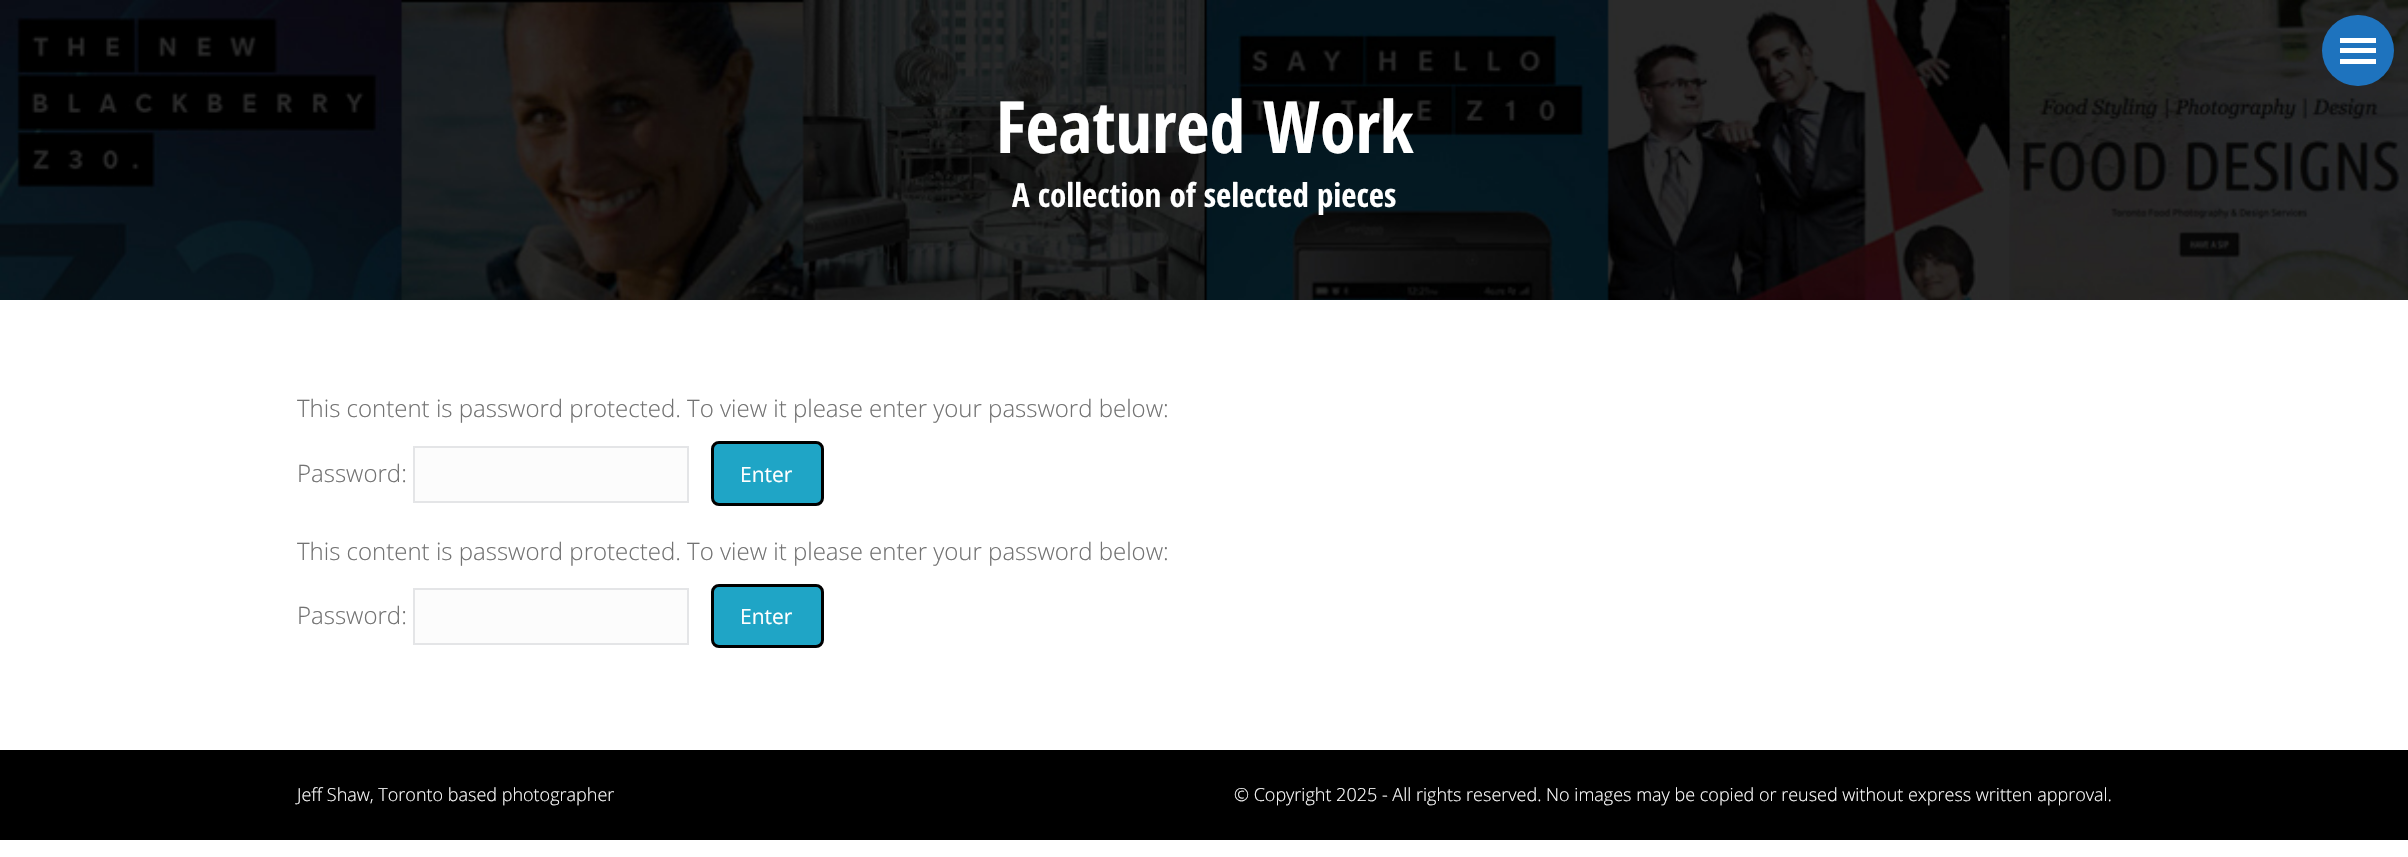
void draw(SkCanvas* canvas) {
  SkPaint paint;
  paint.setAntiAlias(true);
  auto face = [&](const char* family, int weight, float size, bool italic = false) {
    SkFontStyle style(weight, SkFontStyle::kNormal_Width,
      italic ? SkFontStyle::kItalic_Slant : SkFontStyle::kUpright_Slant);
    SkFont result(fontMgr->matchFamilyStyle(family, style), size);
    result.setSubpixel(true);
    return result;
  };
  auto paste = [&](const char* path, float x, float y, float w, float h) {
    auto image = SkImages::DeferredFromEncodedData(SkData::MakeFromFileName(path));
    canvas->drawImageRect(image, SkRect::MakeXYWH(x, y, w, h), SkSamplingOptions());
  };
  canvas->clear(0xffffffff);
  paste("img/1.png", 0, 0, 2408, 300);
  paint.setColor(0xff1e73be);
  canvas->drawRoundRect(SkRect::MakeXYWH(2322, 15, 72, 71), 35.5f, 35.5f, paint);
  {
    const struct { float x, y, w, h; SkColor color; } items[] = {
      {2340, 38, 36, 5, 0xffffffff},
      {2340, 48, 36, 5, 0xffffffff},
      {2340, 59, 36, 5, 0xffffffff},
    };
    for (auto [x, y, w, h, color] : items) {
      paint.setColor(color);
      canvas->drawRect(SkRect::MakeXYWH(x, y, w, h), paint);
    }
  }
  paint.setColor(0xfffcfcfc);
  canvas->drawRect(SkRect::MakeXYWH(414, 447, 274, 55), paint);
  paint.setStroke(true);
  paint.setStrokeWidth(2);
  paint.setColor(0xffe4e5e7);
  canvas->drawRect(SkRect::MakeXYWH(414, 447, 274, 55), paint);
  paint.setStroke(false);
  paint.setColor(0xff1fa5c6);
  canvas->drawRoundRect(SkRect::MakeXYWH(712.5f, 442.5f, 110, 62), 6.5f, 6.5f, paint);
  paint.setStroke(true);
  paint.setStrokeWidth(3);
  paint.setColor(0xff000000);
  canvas->drawRoundRect(SkRect::MakeXYWH(712.5f, 442.5f, 110, 62), 6.5f, 6.5f, paint);
  paint.setStroke(false);
  paint.setColor(0xfffcfcfc);
  canvas->drawRect(SkRect::MakeXYWH(414, 589, 274, 55), paint);
  paint.setStroke(true);
  paint.setStrokeWidth(2);
  paint.setColor(0xffe4e5e7);
  canvas->drawRect(SkRect::MakeXYWH(414, 589, 274, 55), paint);
  paint.setStroke(false);
  paint.setColor(0xff1fa5c6);
  canvas->drawRoundRect(SkRect::MakeXYWH(712.5f, 585.5f, 110, 61), 6.5f, 6.5f, paint);
  paint.setStroke(true);
  paint.setStrokeWidth(3);
  paint.setColor(0xff000000);
  canvas->drawRoundRect(SkRect::MakeXYWH(712.5f, 585.5f, 110, 61), 6.5f, 6.5f, paint);
  paint.setStroke(false);
  canvas->drawRect(SkRect::MakeXYWH(0, 750, 2408, 90), paint);
  auto f0 = face("Open Sans Condensed", 700, 72);
  paint.setColor(0xffffffff);
  canvas->drawString("Featured Work", 996, 153, f0, paint);
  auto f1 = face("Open Sans Condensed", 700, 33);
  canvas->drawString("A collection of selected pieces", 1012, 207, f1, paint);
  auto f2 = face("Open Sans", 300, 24);
  paint.setColor(0xff727272);
  canvas->drawString("This content is password protected. To view it please enter your password below:", 297, 417, f2, paint);
  canvas->drawString("Password:", 297, 482, f2, paint);
  auto f3 = face("Open Sans", 400, 21);
  paint.setColor(0xffffffff);
  canvas->drawString("Enter", 740, 482, f3, paint);
  paint.setColor(0xff727272);
  canvas->drawString("This content is password protected. To view it please enter your password below:", 297, 560, f2, paint);
  canvas->drawString("Password:", 297, 624, f2, paint);
  paint.setColor(0xffffffff);
  canvas->drawString("Enter", 740, 624, f3, paint);
  auto f4 = face("Open Sans", 300, 18);
  canvas->drawString("Jeff Shaw, Toronto based photographer", 297, 801, f4, paint);
  canvas->drawString("© Copyright 2025 - All rights reserved. No images may be copied or reused without express written approval.", 1234, 801, f4, paint);
}
